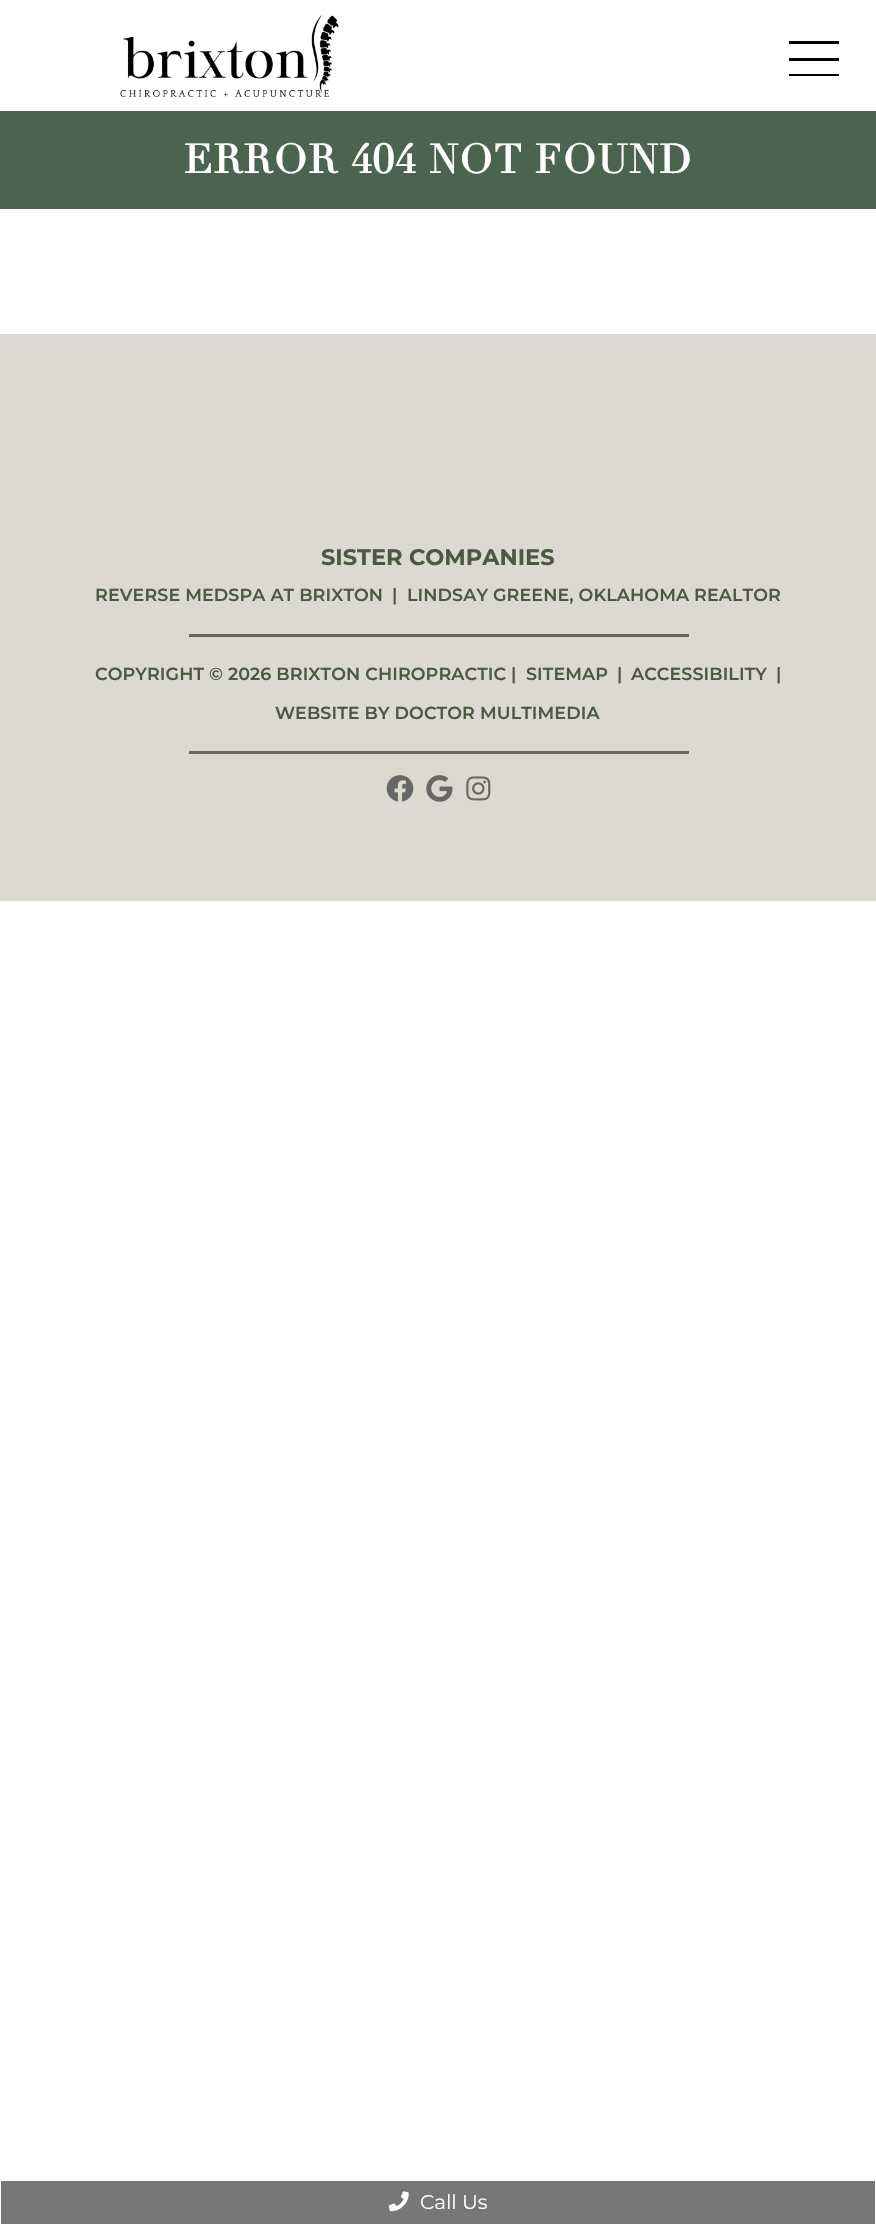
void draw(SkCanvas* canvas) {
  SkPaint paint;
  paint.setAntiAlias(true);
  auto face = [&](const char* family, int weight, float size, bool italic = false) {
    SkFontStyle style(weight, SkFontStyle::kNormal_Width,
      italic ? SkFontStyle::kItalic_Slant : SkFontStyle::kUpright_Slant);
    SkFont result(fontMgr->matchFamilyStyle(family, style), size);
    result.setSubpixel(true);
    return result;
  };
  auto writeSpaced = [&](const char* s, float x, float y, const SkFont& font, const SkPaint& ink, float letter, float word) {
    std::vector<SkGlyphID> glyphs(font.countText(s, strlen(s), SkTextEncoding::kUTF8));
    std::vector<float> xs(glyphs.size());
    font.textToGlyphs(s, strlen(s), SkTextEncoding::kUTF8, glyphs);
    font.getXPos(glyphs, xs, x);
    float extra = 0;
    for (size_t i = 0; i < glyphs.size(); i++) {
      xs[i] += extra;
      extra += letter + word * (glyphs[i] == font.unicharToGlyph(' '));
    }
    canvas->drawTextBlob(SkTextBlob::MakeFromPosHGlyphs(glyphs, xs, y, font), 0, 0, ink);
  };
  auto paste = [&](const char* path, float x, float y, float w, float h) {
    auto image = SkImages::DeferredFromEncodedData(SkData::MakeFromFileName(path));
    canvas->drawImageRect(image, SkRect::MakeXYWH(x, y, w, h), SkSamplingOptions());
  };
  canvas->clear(0xffffffff);
  paste("img/1.png", 120, 14, 219, 83);
  {
    const struct { float x, y, w, h; SkColor color; } items[] = {
      {789, 41, 50, 3, 0xff000000},
      {789, 58, 50, 3, 0xff000000},
      {789, 74, 50, 2, 0xff000000},
      {0, 111, 876, 98, 0xff4a644d},
      {0, 334, 876, 567, 0xffdcd9d0},
      {189, 634, 500, 3, 0xff676767},
      {189, 751, 500, 3, 0xff676767},
    };
    for (auto [x, y, w, h, color] : items) {
      paint.setColor(color);
      canvas->drawRect(SkRect::MakeXYWH(x, y, w, h), paint);
    }
  }
  paste("img/2.png", 386, 775, 28, 27);
  paste("img/3.png", 426, 775, 27, 27);
  paste("img/4.png", 466, 776, 25, 25);
  paint.setColor(0xff777777);
  canvas->drawRect(SkRect::MakeXYWH(1, 2181, 874, 43), paint);
  paste("img/5.png", 388, 2191, 21, 21);
  auto f0 = face("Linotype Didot", 700, 40);
  paint.setColor(0xffffffff);
  writeSpaced("ERROR 404 NOT FOUND", 184, 173, f0, paint, 1.25f, 0);
  auto f1 = face("Montserrat", 700, 22.5f);
  paint.setColor(0xff4b593f);
  canvas->drawString("SISTER COMPANIES", 321, 565, f1, paint);
  auto f2 = face("Montserrat", 600, 17.5f);
  {
    const struct { const char* s; float x, y; } items[] = {
      {"REVERSE MEDSPA AT BRIXTON", 95, 601},
      {"|", 392, 601},
      {"LINDSAY GREENE, OKLAHOMA REALTOR", 407, 601},
      {"COPYRIGHT © 2026 BRIXTON CHIROPRACTIC |", 95, 680},
      {"SITEMAP", 526, 680},
      {"|", 617, 680},
      {"ACCESSIBILITY", 631, 680},
      {"|", 776, 680},
      {"WEBSITE BY DOCTOR MULTIMEDIA", 275, 719},
    };
    for (auto [s, x, y] : items) {
      writeSpaced(s, x, y, f2, paint, 0.1f, 0);
    }
  }
  auto f3 = face("Montserrat", 400, 20);
  paint.setColor(0xffffffff);
  canvas->drawString("Call Us", 420, 2209, f3, paint);
}
